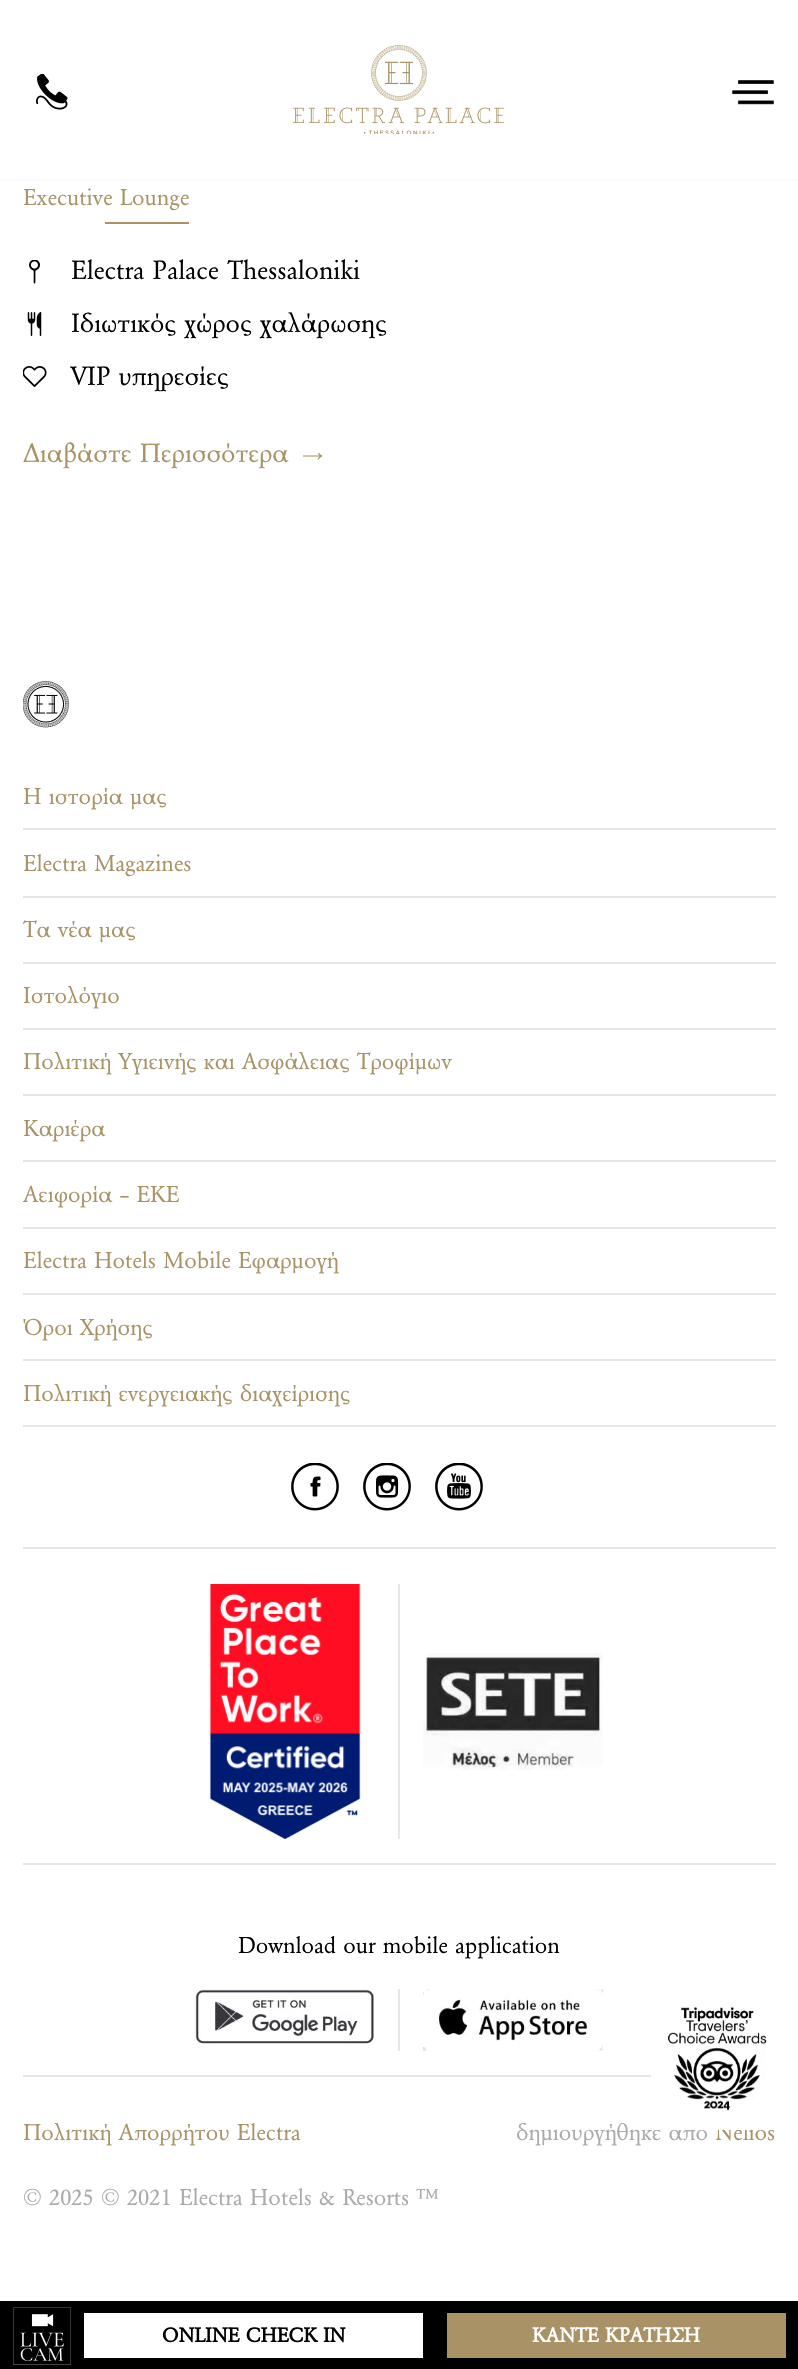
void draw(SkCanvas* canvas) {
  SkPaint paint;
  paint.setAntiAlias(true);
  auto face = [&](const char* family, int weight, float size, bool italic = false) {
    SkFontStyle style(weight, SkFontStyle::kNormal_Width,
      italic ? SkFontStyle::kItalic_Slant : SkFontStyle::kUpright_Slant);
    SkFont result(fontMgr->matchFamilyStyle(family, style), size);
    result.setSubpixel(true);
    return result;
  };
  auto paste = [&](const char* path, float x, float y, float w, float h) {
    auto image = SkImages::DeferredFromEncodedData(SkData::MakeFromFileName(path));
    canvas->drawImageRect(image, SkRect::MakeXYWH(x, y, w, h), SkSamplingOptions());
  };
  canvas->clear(0xffffffff);
  paint.setColor(0xfffafafa);
  canvas->drawRect(SkRect::MakeXYWH(0, 179, 798, 2), paint);
  paste("img/1.png", 36, 74, 32, 36);
  paste("img/2.png", 293, 45, 211, 89);
  paste("img/3.png", 732, 80, 42, 25);
  paint.setColor(0xffa99366);
  canvas->drawRect(SkRect::MakeXYWH(105, 222, 84, 2), paint);
  paste("img/4.png", 29, 260, 11, 24);
  paste("img/5.png", 27, 312, 15, 24);
  paste("img/6.png", 23, 366, 24, 21);
  paste("img/7.png", 303, 453, 20, 7);
  paste("img/8.png", 23, 681, 46, 47);
  {
    const struct { float x, y, w, h; SkColor color; } items[] = {
      {23, 828, 753, 2, 0xffe6e6e6},
      {23, 896, 753, 2, 0xffe6e6e6},
      {23, 962, 753, 2, 0xffe6e6e6},
      {23, 1028, 753, 2, 0xffe6e6e6},
      {23, 1094, 753, 2, 0xffe6e6e6},
      {23, 1160, 753, 2, 0xffe6e6e6},
      {23, 1227, 753, 2, 0xffe6e6e6},
      {23, 1293, 753, 2, 0xffe6e6e6},
      {23, 1359, 753, 2, 0xffe6e6e6},
      {23, 1425, 753, 2, 0xffe6e6e6},
      {23, 1547, 753, 2, 0xffe6e6e6},
    };
    for (auto [x, y, w, h, color] : items) {
      paint.setColor(color);
      canvas->drawRect(SkRect::MakeXYWH(x, y, w, h), paint);
    }
  }
  paste("img/9.png", 291, 1463, 48, 48);
  paste("img/10.png", 363, 1463, 48, 48);
  paste("img/11.png", 435, 1463, 48, 48);
  canvas->drawRect(SkRect::MakeXYWH(23, 1863, 753, 2), paint);
  paste("img/12.png", 209, 1584, 152, 255);
  canvas->drawRect(SkRect::MakeXYWH(398, 1584, 2, 255), paint);
  paste("img/13.png", 423, 1653, 180, 117);
  canvas->drawRect(SkRect::MakeXYWH(23, 2075, 628, 2), paint);
  paste("img/14.png", 195, 1989, 179, 55);
  canvas->drawRect(SkRect::MakeXYWH(398, 1989, 2, 62), paint);
  paste("img/15.png", 423, 1989, 180, 62);
  paint.setColor(0xff000000);
  canvas->drawRect(SkRect::MakeXYWH(0, 2301, 798, 68), paint);
  paste("img/17.png", 13, 2307, 58, 58);
  paint.setColor(0xffffffff);
  canvas->drawRect(SkRect::MakeXYWH(84, 2313, 339, 45), paint);
  paint.setColor(0xffa99366);
  canvas->drawRect(SkRect::MakeXYWH(447, 2313, 339, 45), paint);
  auto f0 = face("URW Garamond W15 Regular", 400, 24);
  canvas->drawString("Executive Lounge", 23, 205, f0, paint);
  auto f1 = face("URW Garamond W15 Regular", 400, 27.6f);
  paint.setColor(0xff000000);
  {
    const struct { const char* s; float x, y; } items[] = {
      {"Electra Palace Thessaloniki", 71, 279},
      {"Ιδιωτικός χώρος χαλάρωσης", 71, 332},
      {"VIP υπηρεσίες", 71, 385},
    };
    for (auto [s, x, y] : items) {
      canvas->drawString(s, x, y, f1, paint);
    }
  }
  paint.setColor(0xffa99366);
  canvas->drawString("Διαβάστε Περισσότερα", 23, 462, f1, paint);
  {
    const struct { const char* s; float x, y; } items[] = {
      {"Η ιστορία μας", 23, 804},
      {"Electra Magazines", 23, 871},
      {"Τα νέα μας", 23, 937},
      {"Ιστολόγιο", 23, 1003},
      {"Πολιτική Υγιεινής και Ασφάλειας Τροφίμων", 23, 1069},
      {"Καριέρα", 23, 1136},
      {"Αειφορία – ΕΚΕ", 23, 1202},
      {"Electra Hotels Mobile Εφαρμογή", 23, 1268},
      {"Όροι Χρήσης", 23, 1335},
      {"Πολιτική ενεργειακής διαχείρισης", 23, 1401},
    };
    for (auto [s, x, y] : items) {
      canvas->drawString(s, x, y, f0, paint);
    }
  }
  paint.setColor(0xff000000);
  canvas->drawString("Download our mobile application", 238, 1953, f0, paint);
  paint.setColor(0xffa99366);
  canvas->drawString("Πολιτική Απορρήτου Electra", 23, 2140, f0, paint);
  paint.setColor(0xffaaaaaa);
  canvas->drawString("δημιουργήθηκε από", 516, 2140, f0, paint);
  paint.setColor(0xffa99366);
  canvas->drawString("Nelios", 715, 2140, f0, paint);
  paint.setColor(0xffaaaaaa);
  canvas->drawString("© 2025 © 2021 Electra Hotels & Resorts ™", 23, 2205, f0, paint);
  paste("img/16.png", 651, 2006, 125, 124);
  auto f2 = face("URW Garamond W15 Regular", 700, 21);
  paint.setColor(0xff000000);
  canvas->drawString("ONLINE CHECK IN", 162, 2342, f2, paint);
  paint.setColor(0xffffffff);
  canvas->drawString("ΚΑΝΤΕ ΚΡΑΤΗΣΗ", 532, 2342, f2, paint);
}
